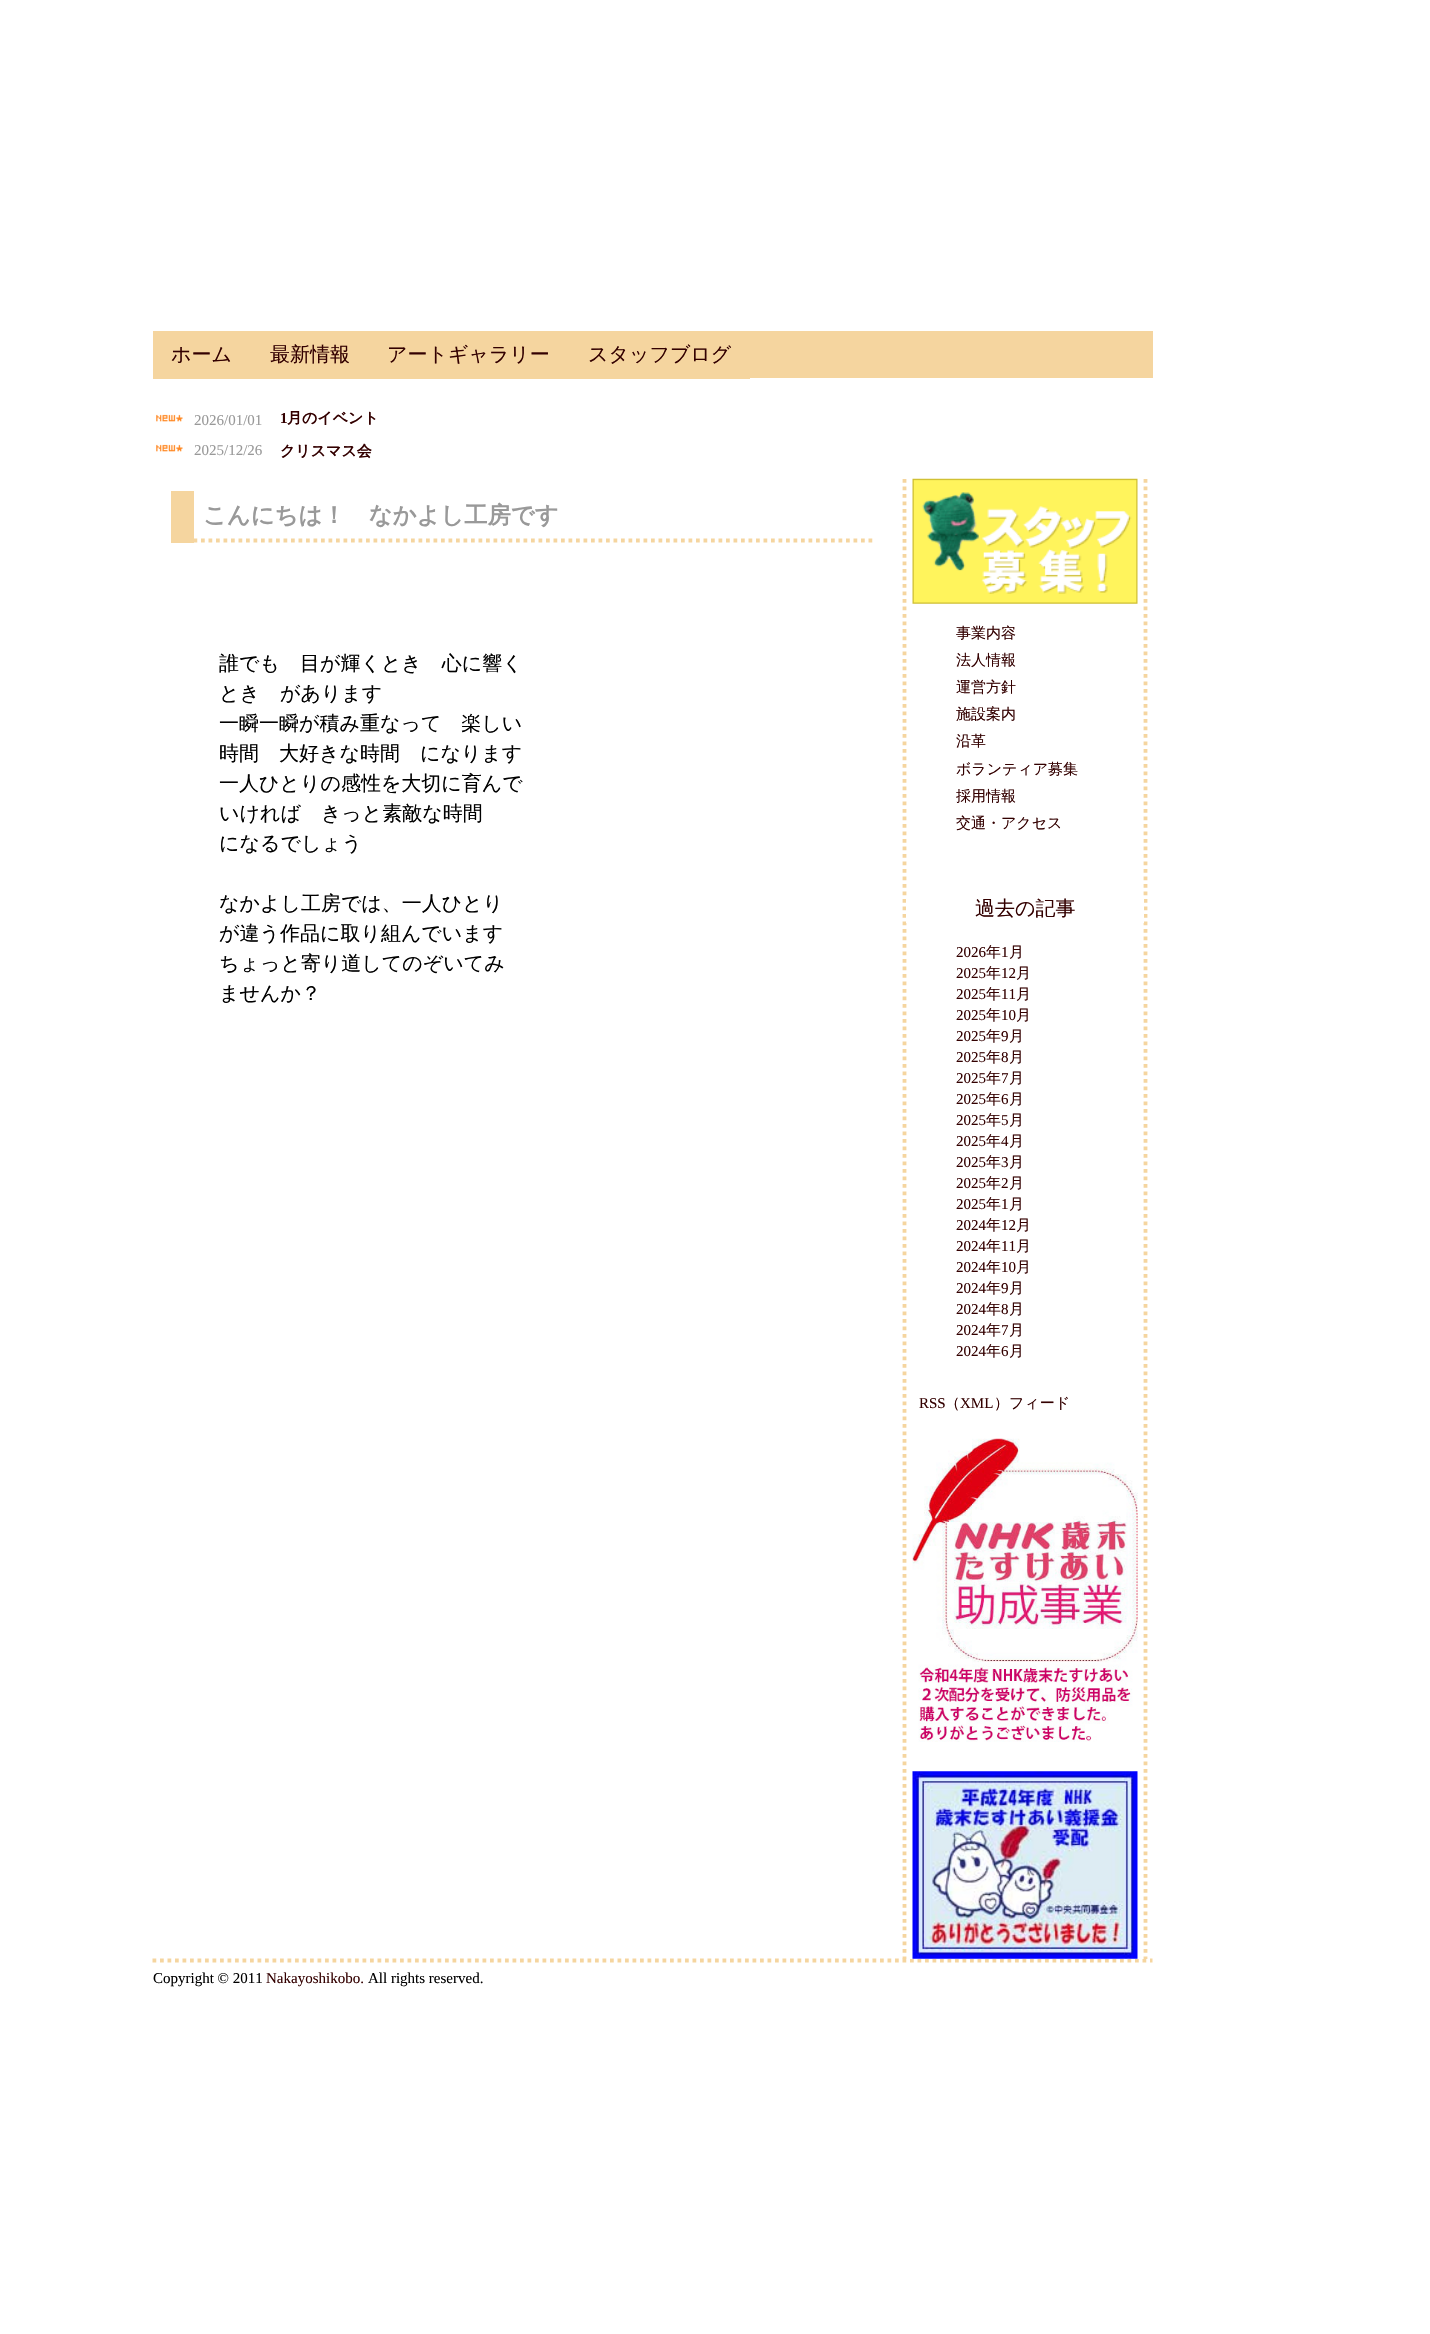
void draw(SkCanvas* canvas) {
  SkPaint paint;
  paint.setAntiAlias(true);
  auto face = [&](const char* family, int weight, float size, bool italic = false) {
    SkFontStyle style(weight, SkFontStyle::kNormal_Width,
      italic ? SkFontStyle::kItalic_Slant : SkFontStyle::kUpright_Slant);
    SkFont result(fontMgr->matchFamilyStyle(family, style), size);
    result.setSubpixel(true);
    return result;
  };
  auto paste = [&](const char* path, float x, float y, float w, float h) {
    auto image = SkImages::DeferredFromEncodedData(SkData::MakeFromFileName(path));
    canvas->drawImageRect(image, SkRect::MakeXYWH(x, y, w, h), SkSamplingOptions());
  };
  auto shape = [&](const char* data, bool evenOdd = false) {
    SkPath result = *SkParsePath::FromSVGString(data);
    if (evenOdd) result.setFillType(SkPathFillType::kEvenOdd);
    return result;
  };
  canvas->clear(0xffffffff);
  paint.setColor(0xfff5d59f);
  canvas->drawRect(SkRect::MakeXYWH(750, 331, 403, 47), paint);
  canvas->drawRect(SkRect::MakeXYWH(153, 331, 597, 48), paint);
  paste("img/1.png", 156, 414, 27, 8);
  paste("img/1.png", 156, 444, 27, 8);
  paint.setStroke(true);
  paint.setStrokeWidth(3.8f);
  paint.setPathEffect(SkDashPathEffect::Make({{3.75f, 3.75f}}, 0));
  canvas->drawPath(shape("M171 540.5H874"), paint);
  paint.setPathEffect(nullptr);
  paint.setStroke(false);
  canvas->drawRect(SkRect::MakeXYWH(171, 491, 23, 52), paint);
  paint.setStroke(true);
  paint.setPathEffect(SkDashPathEffect::Make({{3.75f, 3.75f}}, 0));
  canvas->drawPath(shape("M152.5 1960.5H1152.5"), paint);
  paint.setPathEffect(nullptr);
  paint.setStroke(false);
  paint.setColor(0xffffffff);
  canvas->drawRect(SkRect::MakeXYWH(903, 1958, 244, 1), paint);
  paint.setStroke(true);
  paint.setColor(0xfff5d59f);
  paint.setPathEffect(SkDashPathEffect::Make({{3.75f, 3.75f}}, 0));
  canvas->drawPath(shape("M1145.5 479V1959"), paint);
  paint.setPathEffect(nullptr);
  paint.setPathEffect(SkDashPathEffect::Make({{3.75f, 3.75f}}, 0));
  canvas->drawPath(shape("M904.5 479V1959"), paint);
  paint.setPathEffect(nullptr);
  paste("img/2.png", 912, 478, 226, 126);
  paint.setStroke(false);
  paint.setColor(0xffffffff);
  canvas->drawRect(SkRect::MakeXYWH(906, 899, 238, 24), paint);
  paste("img/3.png", 912, 1438, 226, 304);
  paste("img/4.png", 912, 1771, 226, 188);
  auto f0 = face("WenQuanYi Zen Hei", 500, 20);
  paint.setColor(0xff330000);
  {
    const struct { const char* s; float x, y; } items[] = {
      {"ホーム", 171, 361},
      {"最新情報", 270, 361},
      {"アートギャラリー", 387, 361},
      {"スタッフブログ", 588, 361},
    };
    for (auto [s, x, y] : items) {
      canvas->drawString(s, x, y, f0, paint);
    }
  }
  auto f1 = face("Liberation Serif", 400, 15);
  paint.setColor(0xff999999);
  canvas->drawString("2026/01/01", 194, 425, f1, paint);
  canvas->drawString("2025/12/26", 194, 455, f1, paint);
  auto f2 = face("Liberation Serif", 700, 15);
  paint.setColor(0xff330000);
  canvas->drawString("1", 280, 423, f2, paint);
  auto f3 = face("WenQuanYi Zen Hei", 700, 15);
  canvas->drawString("月のイベント", 287, 423, f3, paint);
  canvas->drawString("クリスマス会", 280, 456, f3, paint);
  auto f4 = face("WenQuanYi Zen Hei", 700, 23.3f);
  paint.setColor(0xff999999);
  canvas->drawString("こんにちは！　なかよし工房です", 203, 523, f4, paint);
  paint.setColor(0xff000000);
  {
    const struct { const char* s; float x, y; } items[] = {
      {"誰でも　目が輝くとき　心に響く", 219, 670},
      {"とき　があります", 219, 700},
      {"一瞬一瞬が積み重なって　楽しい", 219, 730},
      {"時間　大好きな時間　になります", 219, 760},
      {"一人ひとりの感性を大切に育んで", 219, 790},
      {"いければ　きっと素敵な時間", 219, 820},
      {"になるでしょう", 219, 850},
      {"なかよし工房では、一人ひとり", 219, 910},
      {"が違う作品に取り組んでいます", 219, 940},
      {"ちょっと寄り道してのぞいてみ", 219, 970},
      {"ませんか？", 219, 1000},
    };
    for (auto [s, x, y] : items) {
      canvas->drawString(s, x, y, f0, paint);
    }
  }
  auto f5 = face("WenQuanYi Zen Hei", 500, 15);
  paint.setColor(0xff330000);
  {
    const struct { const char* s; float x, y; } items[] = {
      {"事業内容", 956, 638},
      {"法人情報", 956, 665},
      {"運営方針", 956, 692},
      {"施設案内", 956, 719},
      {"沿革", 956, 746},
      {"ボランティア募集", 956, 774},
      {"採用情報", 956, 801},
      {"交通・アクセス", 956, 828},
    };
    for (auto [s, x, y] : items) {
      canvas->drawString(s, x, y, f5, paint);
    }
  }
  canvas->drawString("過去の記事", 975, 915, f0, paint);
  canvas->drawString("2026", 956, 957, f1, paint);
  canvas->drawString("年", 986, 957, f5, paint);
  canvas->drawString("1", 1001, 957, f1, paint);
  canvas->drawString("月", 1009, 957, f5, paint);
  canvas->drawString("2025", 956, 978, f1, paint);
  canvas->drawString("年", 986, 978, f5, paint);
  canvas->drawString("12", 1001, 978, f1, paint);
  canvas->drawString("月", 1016, 978, f5, paint);
  canvas->drawString("2025", 956, 999, f1, paint);
  canvas->drawString("年", 986, 999, f5, paint);
  canvas->drawString("11", 1001, 999, f1, paint);
  canvas->drawString("月", 1016, 999, f5, paint);
  canvas->drawString("2025", 956, 1020, f1, paint);
  canvas->drawString("年", 986, 1020, f5, paint);
  canvas->drawString("10", 1001, 1020, f1, paint);
  canvas->drawString("月", 1016, 1020, f5, paint);
  canvas->drawString("2025", 956, 1041, f1, paint);
  canvas->drawString("年", 986, 1041, f5, paint);
  canvas->drawString("9", 1001, 1041, f1, paint);
  canvas->drawString("月", 1009, 1041, f5, paint);
  canvas->drawString("2025", 956, 1062, f1, paint);
  canvas->drawString("年", 986, 1062, f5, paint);
  canvas->drawString("8", 1001, 1062, f1, paint);
  canvas->drawString("月", 1009, 1062, f5, paint);
  canvas->drawString("2025", 956, 1083, f1, paint);
  canvas->drawString("年", 986, 1083, f5, paint);
  canvas->drawString("7", 1001, 1083, f1, paint);
  canvas->drawString("月", 1009, 1083, f5, paint);
  canvas->drawString("2025", 956, 1104, f1, paint);
  canvas->drawString("年", 986, 1104, f5, paint);
  canvas->drawString("6", 1001, 1104, f1, paint);
  canvas->drawString("月", 1009, 1104, f5, paint);
  canvas->drawString("2025", 956, 1125, f1, paint);
  canvas->drawString("年", 986, 1125, f5, paint);
  canvas->drawString("5", 1001, 1125, f1, paint);
  canvas->drawString("月", 1009, 1125, f5, paint);
  canvas->drawString("2025", 956, 1146, f1, paint);
  canvas->drawString("年", 986, 1146, f5, paint);
  canvas->drawString("4", 1001, 1146, f1, paint);
  canvas->drawString("月", 1009, 1146, f5, paint);
  canvas->drawString("2025", 956, 1167, f1, paint);
  canvas->drawString("年", 986, 1167, f5, paint);
  canvas->drawString("3", 1001, 1167, f1, paint);
  canvas->drawString("月", 1009, 1167, f5, paint);
  canvas->drawString("2025", 956, 1188, f1, paint);
  canvas->drawString("年", 986, 1188, f5, paint);
  canvas->drawString("2", 1001, 1188, f1, paint);
  canvas->drawString("月", 1009, 1188, f5, paint);
  canvas->drawString("2025", 956, 1209, f1, paint);
  canvas->drawString("年", 986, 1209, f5, paint);
  canvas->drawString("1", 1001, 1209, f1, paint);
  canvas->drawString("月", 1009, 1209, f5, paint);
  canvas->drawString("2024", 956, 1230, f1, paint);
  canvas->drawString("年", 986, 1230, f5, paint);
  canvas->drawString("12", 1001, 1230, f1, paint);
  canvas->drawString("月", 1016, 1230, f5, paint);
  canvas->drawString("2024", 956, 1251, f1, paint);
  canvas->drawString("年", 986, 1251, f5, paint);
  canvas->drawString("11", 1001, 1251, f1, paint);
  canvas->drawString("月", 1016, 1251, f5, paint);
  canvas->drawString("2024", 956, 1272, f1, paint);
  canvas->drawString("年", 986, 1272, f5, paint);
  canvas->drawString("10", 1001, 1272, f1, paint);
  canvas->drawString("月", 1016, 1272, f5, paint);
  canvas->drawString("2024", 956, 1293, f1, paint);
  canvas->drawString("年", 986, 1293, f5, paint);
  canvas->drawString("9", 1001, 1293, f1, paint);
  canvas->drawString("月", 1009, 1293, f5, paint);
  canvas->drawString("2024", 956, 1314, f1, paint);
  canvas->drawString("年", 986, 1314, f5, paint);
  canvas->drawString("8", 1001, 1314, f1, paint);
  canvas->drawString("月", 1009, 1314, f5, paint);
  canvas->drawString("2024", 956, 1335, f1, paint);
  canvas->drawString("年", 986, 1335, f5, paint);
  canvas->drawString("7", 1001, 1335, f1, paint);
  canvas->drawString("月", 1009, 1335, f5, paint);
  canvas->drawString("2024", 956, 1356, f1, paint);
  canvas->drawString("年", 986, 1356, f5, paint);
  canvas->drawString("6", 1001, 1356, f1, paint);
  canvas->drawString("月", 1009, 1356, f5, paint);
  canvas->drawString("RSS", 919, 1408, f1, paint);
  canvas->drawString("（", 945, 1408, f5, paint);
  canvas->drawString("XML", 960, 1408, f1, paint);
  canvas->drawString("）フィード", 994, 1408, f5, paint);
  paint.setColor(0xff000000);
  canvas->drawString("Copyright © 2011", 153, 1983, f1, paint);
  paint.setColor(0xff330000);
  canvas->drawString("Nakayoshikobo.", 266, 1983, f1, paint);
  paint.setColor(0xff000000);
  canvas->drawString("All rights reserved.", 368, 1983, f1, paint);
}
